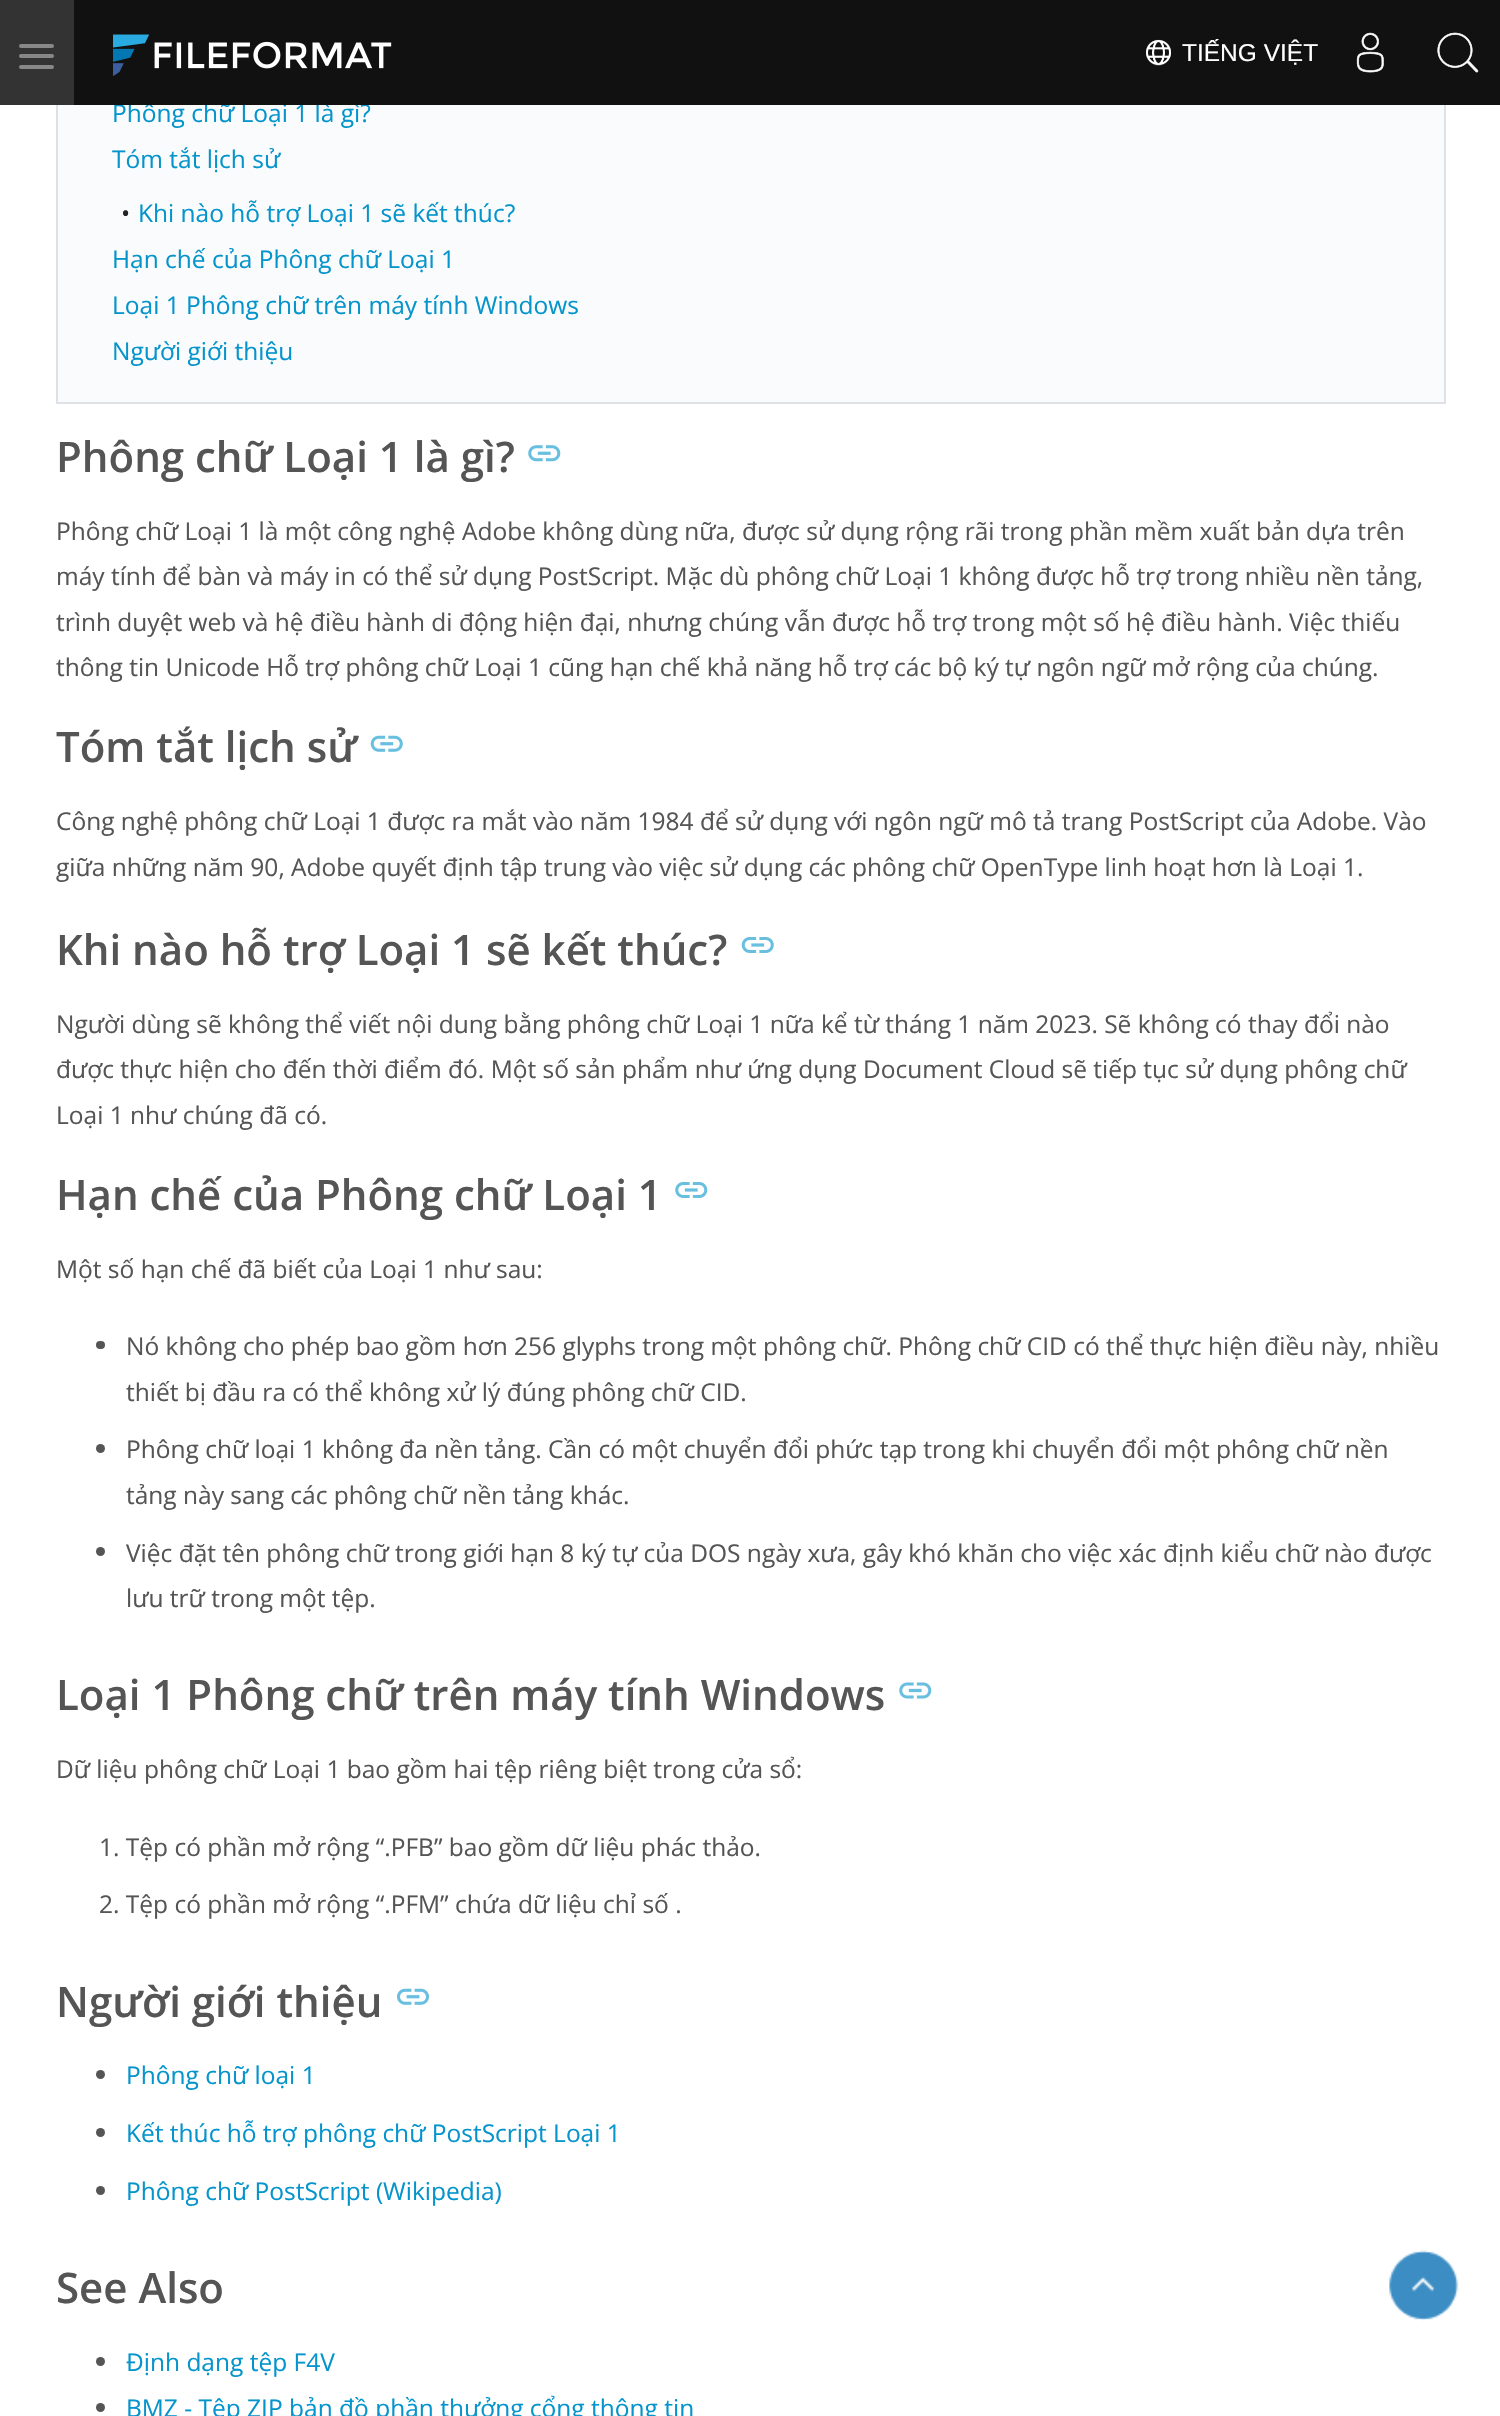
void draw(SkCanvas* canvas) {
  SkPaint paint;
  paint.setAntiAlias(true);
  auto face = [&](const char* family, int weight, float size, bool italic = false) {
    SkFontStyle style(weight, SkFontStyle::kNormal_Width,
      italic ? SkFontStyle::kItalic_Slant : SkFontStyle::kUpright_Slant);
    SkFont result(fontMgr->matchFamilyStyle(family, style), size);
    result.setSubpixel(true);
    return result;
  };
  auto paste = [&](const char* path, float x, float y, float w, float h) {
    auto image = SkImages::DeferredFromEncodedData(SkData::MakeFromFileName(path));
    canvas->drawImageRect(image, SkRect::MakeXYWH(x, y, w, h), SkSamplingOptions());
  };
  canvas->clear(0xffffffff);
  paint.setColor(0xfffafbfc);
  canvas->drawRect(SkRect::MakeXYWH(58, 105, 1386, 297), paint);
  paint.setStroke(true);
  paint.setStrokeWidth(2);
  paint.setColor(0xffdee2e6);
  canvas->drawRect(SkRect::MakeXYWH(57, 15, 1388, 388), paint);
  paint.setStroke(false);
  paint.setColor(0xff333333);
  canvas->drawRect(SkRect::MakeXYWH(0, 0, 74, 105), paint);
  paint.setColor(0xff888888);
  canvas->drawRoundRect(SkRect::MakeXYWH(19, 44, 35, 4), 2, 2, paint);
  canvas->drawRoundRect(SkRect::MakeXYWH(19, 54, 35, 4), 2, 2, paint);
  canvas->drawRoundRect(SkRect::MakeXYWH(19, 65, 35, 4), 2, 2, paint);
  paste("img/5.png", 528, 445, 33, 17);
  paste("img/6.png", 370, 735, 33, 17);
  paste("img/7.png", 741, 937, 33, 16);
  paste("img/8.png", 675, 1182, 33, 16);
  paint.setColor(0xff555555);
  canvas->drawRoundRect(SkRect::MakeXYWH(96, 1341, 9, 8), 4, 4, paint);
  canvas->drawCircle(100.5f, 1448.5f, 4.5f, paint);
  canvas->drawCircle(100.5f, 1551.5f, 4.5f, paint);
  paste("img/9.png", 899, 1682, 33, 17);
  paste("img/10.png", 397, 1988, 32, 17);
  canvas->drawCircle(100.5f, 2074.5f, 4.5f, paint);
  canvas->drawCircle(100.5f, 2132.5f, 4.5f, paint);
  canvas->drawCircle(100.5f, 2190.5f, 4.5f, paint);
  canvas->drawCircle(100.5f, 2361.5f, 4.5f, paint);
  canvas->drawCircle(100.5f, 2407.5f, 4.5f, paint);
  paste("img/11.png", 1389, 2250, 70, 71);
  auto f0 = face("Open Sans", 400, 24.5f);
  paint.setColor(0xff0594cb);
  canvas->drawString("Phông chữ Loại 1 là gì?", 112, 122, f0, paint);
  paint.setColor(0xff111111);
  canvas->drawRect(SkRect::MakeXYWH(74, 0, 1426, 105), paint);
  paste("img/4.png", 1437, 32, 42, 41);
  auto f1 = face("Liberation Sans", 400, 24.5f);
  paint.setColor(0xffffffff);
  canvas->drawString("TIẾNG VIỆT", 1182, 61, f1, paint);
  paste("img/2.png", 1146, 39, 25, 27);
  paste("img/3.png", 1356, 32, 28, 41);
  paste("img/1.png", 113, 34, 279, 42);
  paint.setColor(0xff0594cb);
  canvas->drawString("Tóm tắt lịch sử", 112, 168, f0, paint);
  paint.setColor(0xff222222);
  canvas->drawString("•", 121, 222, f0, paint);
  paint.setColor(0xff0594cb);
  {
    const struct { const char* s; float x, y; } items[] = {
      {"Khi nào hỗ trợ Loại 1 sẽ kết thúc?", 138, 222},
      {"Hạn chế của Phông chữ Loại 1", 112, 268},
      {"Loại 1 Phông chữ trên máy tính Windows", 112, 314},
      {"Người giới thiệu", 112, 360},
    };
    for (auto [s, x, y] : items) {
      canvas->drawString(s, x, y, f0, paint);
    }
  }
  auto f2 = face("Open Sans", 600, 42);
  paint.setColor(0xff555555);
  canvas->drawString("Phông chữ Loại 1 là gì?", 56, 472, f2, paint);
  {
    const struct { const char* s; float x, y; } items[] = {
      {"Phông chữ Loại 1 là một công nghệ Adobe không dùng nữa, được sử dụng rộng rãi trong phần mềm xuất bản dựa trên", 56, 540},
      {"máy tính để bàn và máy in có thể sử dụng PostScript. Mặc dù phông chữ Loại 1 không được hỗ trợ trong nhiều nền tảng,", 56, 585},
      {"trình duyệt web và hệ điều hành di động hiện đại, nhưng chúng vẫn được hỗ trợ trong một số hệ điều hành. Việc thiếu", 56, 631},
      {"thông tin Unicode Hỗ trợ phông chữ Loại 1 cũng hạn chế khả năng hỗ trợ các bộ ký tự ngôn ngữ mở rộng của chúng.", 56, 676},
    };
    for (auto [s, x, y] : items) {
      canvas->drawString(s, x, y, f0, paint);
    }
  }
  canvas->drawString("Tóm tắt lịch sử", 56, 762, f2, paint);
  canvas->drawString("Công nghệ phông chữ Loại 1 được ra mắt vào năm 1984 để sử dụng với ngôn ngữ mô tả trang PostScript của Adobe. Vào", 56, 830, f0, paint);
  canvas->drawString("giữa những năm 90, Adobe quyết định tập trung vào việc sử dụng các phông chữ OpenType linh hoạt hơn là Loại 1.", 56, 876, f0, paint);
  canvas->drawString("Khi nào hỗ trợ Loại 1 sẽ kết thúc?", 56, 965, f2, paint);
  {
    const struct { const char* s; float x, y; } items[] = {
      {"Người dùng sẽ không thể viết nội dung bằng phông chữ Loại 1 nữa kể từ tháng 1 năm 2023. Sẽ không có thay đổi nào", 56, 1033},
      {"được thực hiện cho đến thời điểm đó. Một số sản phẩm như ứng dụng Document Cloud sẽ tiếp tục sử dụng phông chữ", 56, 1078},
      {"Loại 1 như chúng đã có.", 56, 1124},
    };
    for (auto [s, x, y] : items) {
      canvas->drawString(s, x, y, f0, paint);
    }
  }
  canvas->drawString("Hạn chế của Phông chữ Loại 1", 56, 1210, f2, paint);
  {
    const struct { const char* s; float x, y; } items[] = {
      {"Một số hạn chế đã biết của Loại 1 như sau:", 56, 1278},
      {"Nó không cho phép bao gồm hơn 256 glyphs trong một phông chữ. Phông chữ CID có thể thực hiện điều này, nhiều", 126, 1355},
      {"thiết bị đầu ra có thể không xử lý đúng phông chữ CID.", 126, 1401},
      {"Phông chữ loại 1 không đa nền tảng. Cần có một chuyển đổi phức tạp trong khi chuyển đổi một phông chữ nền", 126, 1458},
      {"tảng này sang các phông chữ nền tảng khác.", 126, 1504},
      {"Việc đặt tên phông chữ trong giới hạn 8 ký tự của DOS ngày xưa, gây khó khăn cho việc xác định kiểu chữ nào được", 126, 1562},
      {"lưu trữ trong một tệp.", 126, 1607},
    };
    for (auto [s, x, y] : items) {
      canvas->drawString(s, x, y, f0, paint);
    }
  }
  canvas->drawString("Loại 1 Phông chữ trên máy tính Windows", 56, 1710, f2, paint);
  {
    const struct { const char* s; float x, y; } items[] = {
      {"Dữ liệu phông chữ Loại 1 bao gồm hai tệp riêng biệt trong cửa sổ:", 56, 1778},
      {"1. Tệp có phần mở rộng “.PFB” bao gồm dữ liệu phác thảo.", 99, 1856},
      {"2. Tệp có phần mở rộng “.PFM” chứa dữ liệu chỉ số .", 99, 1913},
    };
    for (auto [s, x, y] : items) {
      canvas->drawString(s, x, y, f0, paint);
    }
  }
  canvas->drawString("Người giới thiệu", 56, 2017, f2, paint);
  paint.setColor(0xff0594cb);
  {
    const struct { const char* s; float x, y; } items[] = {
      {"Phông chữ loại 1", 126, 2084},
      {"Kết thúc hỗ trợ phông chữ PostScript Loại 1", 126, 2142},
      {"Phông chữ PostScript (Wikipedia)", 126, 2200},
    };
    for (auto [s, x, y] : items) {
      canvas->drawString(s, x, y, f0, paint);
    }
  }
  paint.setColor(0xff555555);
  canvas->drawString("See Also", 56, 2303, f2, paint);
  paint.setColor(0xff0594cb);
  canvas->drawString("Định dạng tệp F4V", 126, 2371, f0, paint);
  canvas->drawString("BMZ - Tệp ZIP bản đồ phần thưởng cổng thông tin", 126, 2417, f0, paint);
}
